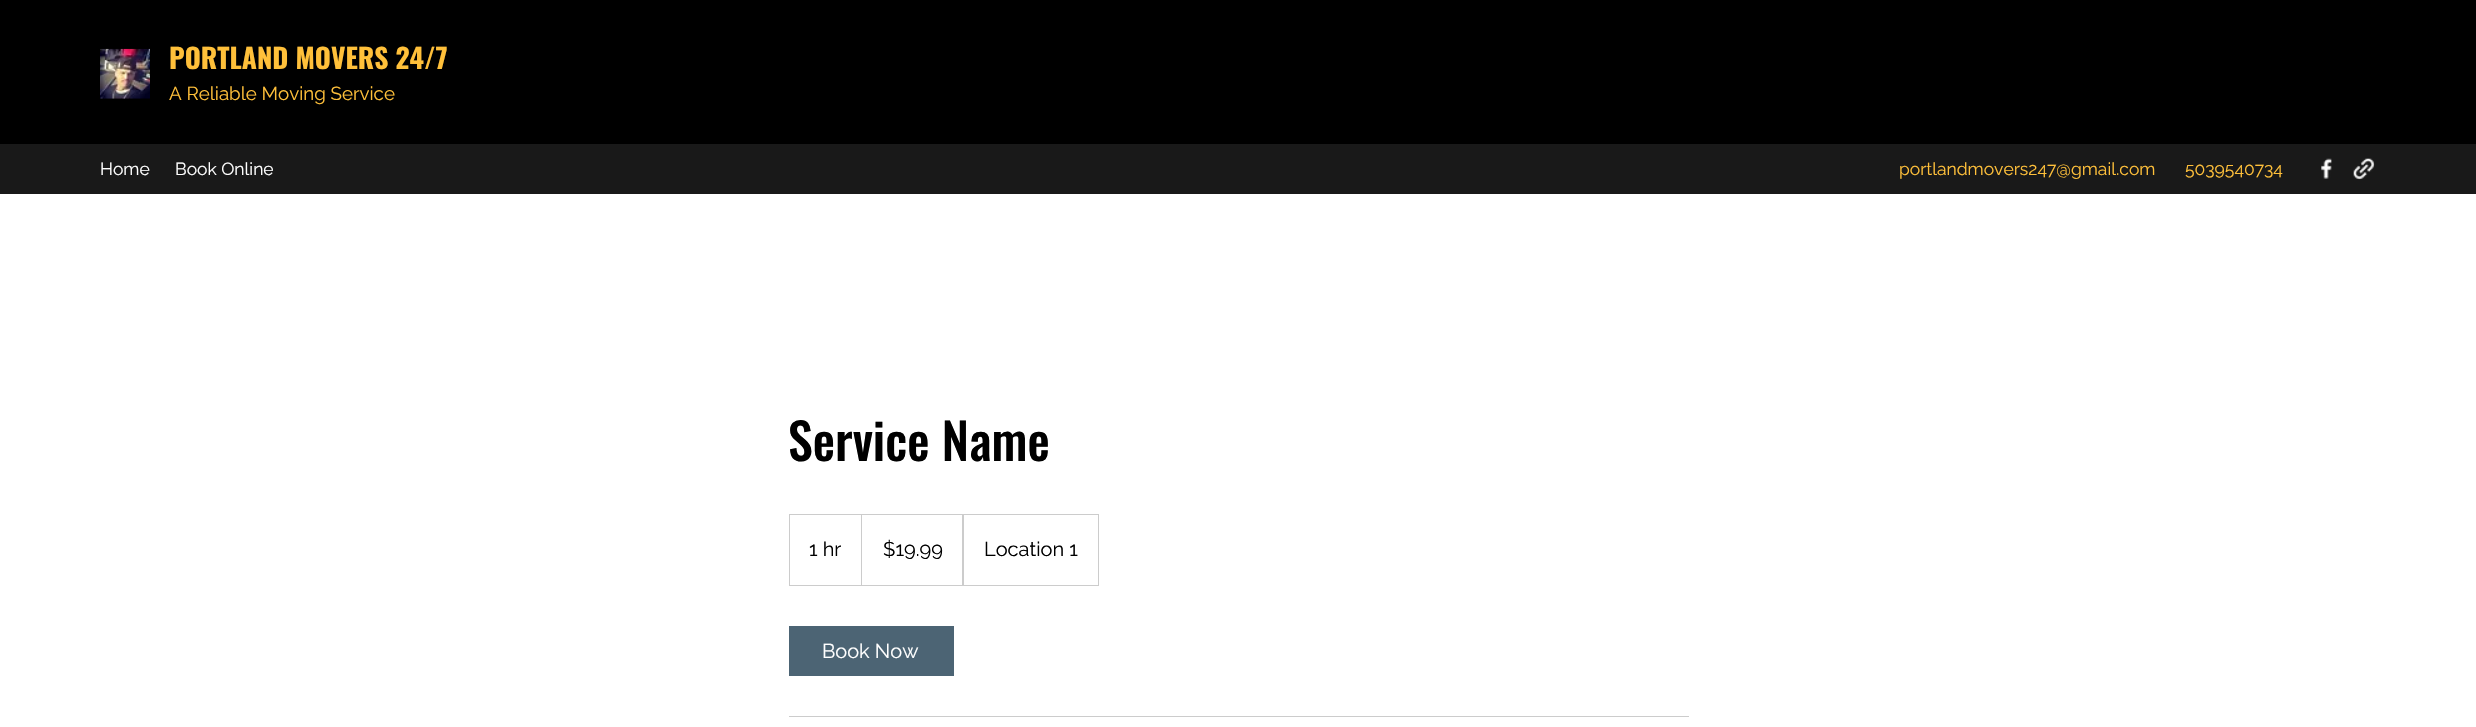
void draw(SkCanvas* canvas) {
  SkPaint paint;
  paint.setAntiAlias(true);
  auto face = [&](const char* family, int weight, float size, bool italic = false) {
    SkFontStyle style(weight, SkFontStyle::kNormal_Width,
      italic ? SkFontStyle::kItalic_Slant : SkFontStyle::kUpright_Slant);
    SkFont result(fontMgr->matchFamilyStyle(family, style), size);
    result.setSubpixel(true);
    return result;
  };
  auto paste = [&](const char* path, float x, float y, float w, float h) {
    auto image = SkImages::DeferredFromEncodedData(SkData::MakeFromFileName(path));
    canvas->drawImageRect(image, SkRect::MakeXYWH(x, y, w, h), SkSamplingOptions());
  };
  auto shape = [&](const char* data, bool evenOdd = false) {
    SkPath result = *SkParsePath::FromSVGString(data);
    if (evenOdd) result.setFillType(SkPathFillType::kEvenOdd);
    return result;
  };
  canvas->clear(0xffffffff);
  paint.setColor(0xff000000);
  canvas->drawRect(SkRect::MakeXYWH(0, 0, 2476, 144), paint);
  paste("img/1.png", 100, 48, 50, 51);
  paint.setColor(0xff191919);
  canvas->drawRect(SkRect::MakeXYWH(0, 144, 2476, 50), paint);
  paste("img/2.png", 2321, 158, 11, 21);
  paste("img/3.png", 2353, 158, 22, 22);
  paint.setStroke(true);
  paint.setStrokeWidth(1);
  paint.setColor(0xffcccccc);
  canvas->drawRect(SkRect::MakeXYWH(789.5f, 514.5f, 309, 71), paint);
  paint.setStroke(false);
  canvas->drawPath(shape("M861 585V514L862 515V585Z"), paint);
  canvas->drawPath(shape("M962 585V514L964 515V585Z"), paint);
  paint.setColor(0xff4c6474);
  canvas->drawRect(SkRect::MakeXYWH(789, 626, 165, 50), paint);
  paint.setColor(0xffcccccc);
  canvas->drawRect(SkRect::MakeXYWH(789, 716, 900, 1), paint);
  auto f0 = face("Oswald", 700, 27.5f);
  paint.setColor(0xffffc03a);
  canvas->drawString("PORTLAND MOVERS 24/7", 169, 69, f0, paint);
  auto f1 = face("Raleway", 400, 18.75f);
  canvas->drawString("A Reliable Moving Service", 169, 100, f1, paint);
  auto f2 = face("Raleway", 400, 17.5f);
  paint.setColor(0xffffffff);
  canvas->drawString("Home", 100, 175, f2, paint);
  canvas->drawString("Book Online", 175, 175, f2, paint);
  paint.setColor(0xffffc03a);
  canvas->drawString("portlandmovers247@gmail.com", 1899, 175, f2, paint);
  canvas->drawString("5039540734", 2185, 175, f2, paint);
  auto f3 = face("Oswald", 500, 50);
  paint.setColor(0xff000000);
  canvas->drawString("Service Name", 788, 461, f3, paint);
  auto f4 = face("Raleway", 400, 20);
  {
    const struct { const char* s; float x, y; } items[] = {
      {"1 hr", 809, 556},
      {"$19.99", 883, 556},
      {"Location 1", 984, 556},
    };
    for (auto [s, x, y] : items) {
      canvas->drawString(s, x, y, f4, paint);
    }
  }
  paint.setColor(0xffffffff);
  canvas->drawString("Book Now", 822, 658, f4, paint);
}
